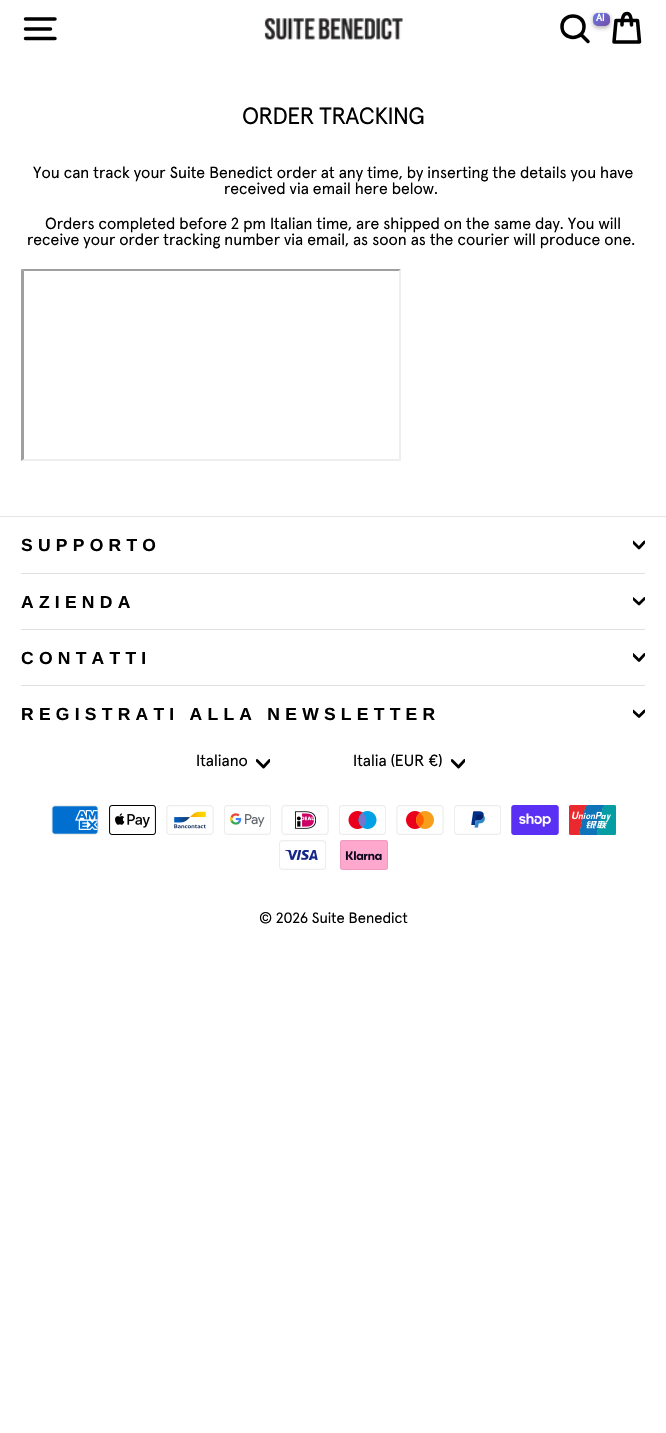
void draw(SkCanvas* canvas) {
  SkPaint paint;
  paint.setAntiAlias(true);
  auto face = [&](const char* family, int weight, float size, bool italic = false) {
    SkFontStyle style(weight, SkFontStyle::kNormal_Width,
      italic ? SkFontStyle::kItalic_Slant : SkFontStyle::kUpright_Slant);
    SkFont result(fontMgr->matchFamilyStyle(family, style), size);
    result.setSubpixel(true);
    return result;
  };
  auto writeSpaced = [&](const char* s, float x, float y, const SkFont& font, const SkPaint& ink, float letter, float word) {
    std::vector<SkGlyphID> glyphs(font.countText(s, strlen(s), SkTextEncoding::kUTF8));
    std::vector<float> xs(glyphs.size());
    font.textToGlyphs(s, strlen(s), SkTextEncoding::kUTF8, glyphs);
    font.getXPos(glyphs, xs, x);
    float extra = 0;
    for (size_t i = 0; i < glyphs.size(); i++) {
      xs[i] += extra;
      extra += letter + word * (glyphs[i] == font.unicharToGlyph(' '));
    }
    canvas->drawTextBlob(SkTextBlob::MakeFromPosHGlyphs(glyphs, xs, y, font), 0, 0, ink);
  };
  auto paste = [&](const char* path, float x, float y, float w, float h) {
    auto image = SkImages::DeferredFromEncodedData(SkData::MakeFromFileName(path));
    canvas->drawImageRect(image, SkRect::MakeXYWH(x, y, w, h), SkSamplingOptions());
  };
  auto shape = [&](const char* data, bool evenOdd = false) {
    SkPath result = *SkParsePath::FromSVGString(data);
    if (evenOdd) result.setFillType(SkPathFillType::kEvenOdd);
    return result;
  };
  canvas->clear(0xffffffff);
  paint.setStroke(true);
  paint.setStrokeWidth(3.5f);
  paint.setStrokeCap(SkPaint::kRound_Cap);
  paint.setStrokeJoin(SkPaint::kRound_Join);
  paint.setColor(0xff000000);
  canvas->drawPath(shape("M25.5 19H55M25.5 29H50.5M25.5 38.5H55"), paint);
  paste("img/1.png", 264, 18, 139, 22);
  canvas->drawPath(shape("M584 26.5C584 41 562 41 562 26.5C562 12.5 584 12.5 584 26.5ZM588 41.5L581 34.5"), paint);
  canvas->drawPath(shape("M622 25C622 16 624 13.5 627 13.5C629.5 13.5 631.5 16 631.5 25M616 20.5H637.5L639.5 42H614Z"), paint);
  paint.setStroke(false);
  paint.setColor(0x4d000000);
  paint.setMaskFilter(SkMaskFilter::MakeBlur(kNormal_SkBlurStyle, 2));
  canvas->drawRoundRect(SkRect::MakeXYWH(593, 14, 17, 14), 5, 5, paint);
  paint.setMaskFilter(nullptr);
  {
    const SkColor colors[] = {0xff667eea, 0xff764ba2};
    const float stops[] = {0, 1};
    const SkPoint ends[] = {{593, 12}, {609, 27}};
    paint.setShader(SkGradientShader::MakeLinear(ends, colors, stops, 2, SkTileMode::kClamp));
    paint.setAlpha(255);
  }
  canvas->drawRoundRect(SkRect::MakeXYWH(593, 13, 17, 13), 5, 5, paint);
  paint.setShader(nullptr);
  paint.setColor(0xff9f9f9f);
  canvas->drawPath(shape("M21 269H401L399 271H24Z"), paint);
  paint.setColor(0xffeeeeee);
  canvas->drawPath(shape("M401 269V461L399 459V271Z"), paint);
  canvas->drawPath(shape("M401 461H21L24 459H399Z"), paint);
  paint.setColor(0xff9f9f9f);
  canvas->drawPath(shape("M21 461V269L24 271V459Z"), paint);
  paint.setColor(0xffe6e6e6);
  canvas->drawRect(SkRect::MakeXYWH(0, 516, 666, 1), paint);
  canvas->save();
  canvas->clipRect(SkRect::MakeXYWH(633, 539, 12, 12));
  paint.setStroke(true);
  paint.setStrokeWidth(2.7f);
  paint.setColor(0xff000000);
  canvas->drawPath(shape("M633 542L639 548L644.5 542"), paint);
  canvas->restore();
  paint.setStroke(false);
  paint.setColor(0xffe0e0e0);
  canvas->drawRect(SkRect::MakeXYWH(21, 573, 624, 1), paint);
  canvas->save();
  canvas->clipRect(SkRect::MakeXYWH(633, 595, 12, 13));
  paint.setStroke(true);
  paint.setColor(0xff000000);
  canvas->drawPath(shape("M633 598.5L639 604L644.5 598.5"), paint);
  canvas->restore();
  paint.setStroke(false);
  paint.setColor(0xffe0e0e0);
  canvas->drawRect(SkRect::MakeXYWH(21, 629, 624, 1), paint);
  canvas->save();
  canvas->clipRect(SkRect::MakeXYWH(633, 651, 12, 13));
  paint.setStroke(true);
  paint.setColor(0xff000000);
  canvas->drawPath(shape("M633 654.5L639 660.5L644.5 654.5"), paint);
  canvas->restore();
  paint.setStroke(false);
  paint.setColor(0xffe0e0e0);
  canvas->drawRect(SkRect::MakeXYWH(21, 685, 624, 1), paint);
  canvas->save();
  canvas->clipRect(SkRect::MakeXYWH(633, 708, 12, 12));
  paint.setStroke(true);
  paint.setColor(0xff000000);
  canvas->drawPath(shape("M633 711L639 716.5L644.5 711"), paint);
  canvas->restore();
  canvas->save();
  canvas->clipRect(SkRect::MakeXYWH(256, 758, 14, 13));
  paint.setStrokeWidth(2.9f);
  canvas->drawPath(shape("M257 760.5L263.5 767L269.5 760.5"), paint);
  canvas->restore();
  canvas->save();
  canvas->clipRect(SkRect::MakeXYWH(451, 758, 14, 13));
  canvas->drawPath(shape("M452 760.5L458.5 767L464.5 760.5"), paint);
  canvas->restore();
  paste("img/2.png", 51, 805, 48, 30);
  paste("img/3.png", 109, 805, 47, 30);
  paste("img/4.png", 166, 805, 48, 30);
  paste("img/5.png", 224, 805, 47, 30);
  paste("img/6.png", 281, 805, 48, 30);
  paste("img/7.png", 339, 805, 47, 30);
  paste("img/8.png", 396, 805, 48, 30);
  paste("img/9.png", 454, 805, 47, 30);
  paste("img/10.png", 511, 805, 48, 30);
  paste("img/11.png", 569, 805, 47, 30);
  paste("img/12.png", 279, 840, 47, 30);
  paste("img/13.png", 340, 840, 48, 30);
  auto f0 = face("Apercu", 700, 10);
  paint.setStroke(false);
  paint.setColor(0xffffffff);
  canvas->drawString("AI", 596, 21, f0, paint);
  auto f1 = face("Apercu", 400, 23.5f);
  paint.setColor(0xff000000);
  writeSpaced("ORDER TRACKING", 242, 124, f1, paint, -0.6f, 0);
  auto f2 = face("Apercu", 400, 16.1f);
  {
    const struct { const char* s; float x, y; } items[] = {
      {"You can track your Suite Benedict order at any time, by inserting the details you have", 33, 178},
      {"received via email here below.", 224, 194},
      {"Orders completed before 2 pm Italian time, are shipped on the same day. You will", 45, 229},
      {"receive your order tracking number via email, as soon as the courier will produce one.", 27, 245},
    };
    for (auto [s, x, y] : items) {
      canvas->drawString(s, x, y, f2, paint);
    }
  }
  auto f3 = face("Liberation Sans", 700, 17.5f);
  {
    const struct { const char* s; float x, y; } items[] = {
      {"SUPPORTO", 21, 551},
      {"AZIENDA", 21, 608},
      {"CONTATTI", 21, 664},
      {"REGISTRATI ALLA NEWSLETTER", 21, 720},
    };
    for (auto [s, x, y] : items) {
      writeSpaced(s, x, y, f3, paint, 5.25f, 0);
    }
  }
  canvas->drawString("Italiano", 196, 766, f2, paint);
  canvas->drawString("Italia (EUR €)", 353, 766, f2, paint);
  auto f4 = face("Apercu", 400, 15);
  canvas->drawString("© 2026 Suite Benedict", 259, 923, f4, paint);
}
